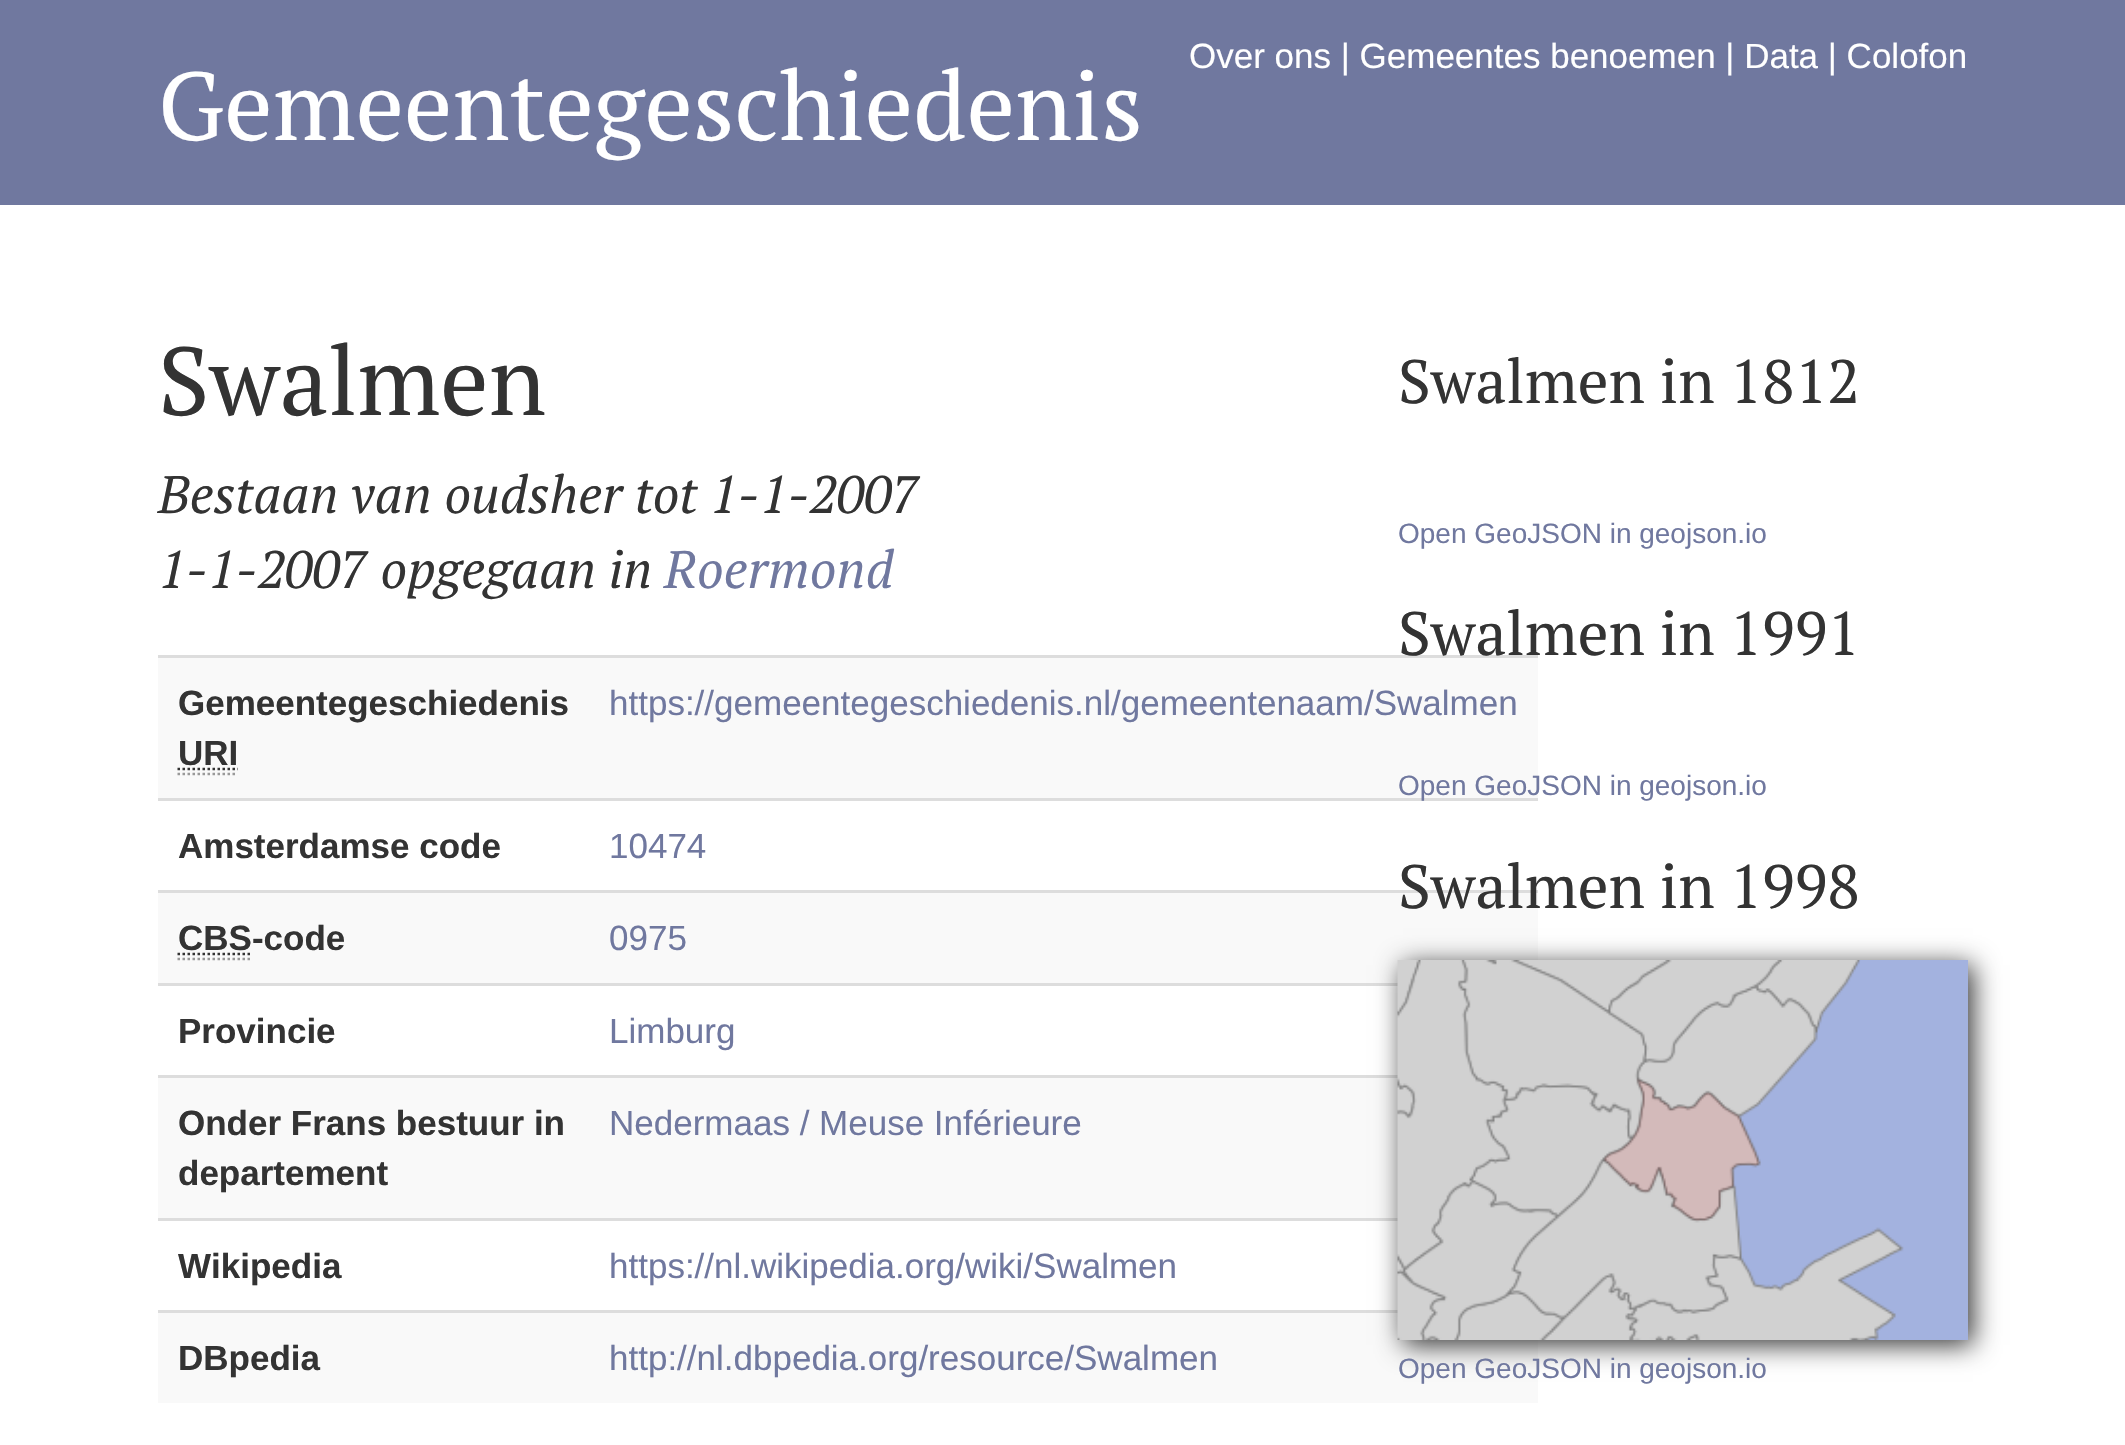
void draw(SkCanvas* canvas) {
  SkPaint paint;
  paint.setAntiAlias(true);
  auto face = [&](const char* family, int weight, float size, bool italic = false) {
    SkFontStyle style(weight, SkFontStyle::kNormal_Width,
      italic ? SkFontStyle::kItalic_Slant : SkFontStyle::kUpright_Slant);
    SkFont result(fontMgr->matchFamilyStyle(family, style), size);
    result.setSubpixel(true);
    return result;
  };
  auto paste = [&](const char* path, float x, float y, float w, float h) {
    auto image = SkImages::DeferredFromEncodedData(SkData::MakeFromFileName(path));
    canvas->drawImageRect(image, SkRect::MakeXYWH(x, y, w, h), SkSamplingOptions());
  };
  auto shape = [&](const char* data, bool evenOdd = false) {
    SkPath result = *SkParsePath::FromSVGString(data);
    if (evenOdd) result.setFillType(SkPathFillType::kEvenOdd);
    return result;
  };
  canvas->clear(0xff70789f);
  paint.setColor(0xffffffff);
  canvas->drawRect(SkRect::MakeXYWH(0, 205, 2125, 1240), paint);
  paint.setColor(0xfff9f9f9);
  canvas->drawRect(SkRect::MakeXYWH(158, 658, 1380, 140), paint);
  paint.setStroke(true);
  paint.setStrokeWidth(2.5f);
  paint.setColor(0xff999999);
  paint.setPathEffect(SkDashPathEffect::Make({{2.5f, 2.5f}}, 0));
  canvas->drawPath(shape("M177.5 774H237.5"), paint);
  paint.setPathEffect(nullptr);
  paint.setColor(0xff333333);
  paint.setPathEffect(SkDashPathEffect::Make({{2.5f, 2.5f}}, 0));
  canvas->drawPath(shape("M177.5 769H238"), paint);
  paint.setPathEffect(nullptr);
  paint.setStroke(false);
  {
    const struct { float x, y, w, h; SkColor color; } items[] = {
      {158, 655, 1380, 3, 0xffdddddd},
      {158, 798, 1380, 3, 0xffdddddd},
      {158, 893, 1380, 90, 0xfff9f9f9},
    };
    for (auto [x, y, w, h, color] : items) {
      paint.setColor(color);
      canvas->drawRect(SkRect::MakeXYWH(x, y, w, h), paint);
    }
  }
  paint.setStroke(true);
  paint.setColor(0xff999999);
  paint.setPathEffect(SkDashPathEffect::Make({{2.5f, 2.5f}}, 0));
  canvas->drawPath(shape("M177.5 959H252.5"), paint);
  paint.setPathEffect(nullptr);
  paint.setColor(0xff333333);
  paint.setPathEffect(SkDashPathEffect::Make({{2.5f, 2.5f}}, 0));
  canvas->drawPath(shape("M177.5 954H251.5"), paint);
  paint.setPathEffect(nullptr);
  paint.setStroke(false);
  {
    const struct { float x, y, w, h; SkColor color; } items[] = {
      {158, 890, 1380, 3, 0xffdddddd},
      {158, 983, 1240, 3, 0xffdddddd},
      {158, 1078, 1240, 140, 0xfff9f9f9},
      {158, 1075, 1240, 3, 0xffdddddd},
      {158, 1218, 1240, 3, 0xffdddddd},
      {158, 1313, 1380, 90, 0xfff9f9f9},
      {158, 1310, 1240, 3, 0xffdddddd},
    };
    for (auto [x, y, w, h, color] : items) {
      paint.setColor(color);
      canvas->drawRect(SkRect::MakeXYWH(x, y, w, h), paint);
    }
  }
  paint.setColor(0xff333333);
  paint.setMaskFilter(SkMaskFilter::MakeBlur(kNormal_SkBlurStyle, 12.5f));
  canvas->drawRect(SkRect::MakeXYWH(1403, 965, 570, 380), paint);
  paint.setMaskFilter(nullptr);
  paint.setColor(0xffa3b2df);
  canvas->drawRect(SkRect::MakeXYWH(1409, 960, 559, 380), paint);
  paste("img/1.png", 1397, 960, 507, 380);
  auto f0 = face("Liberation Sans", 400, 35);
  paint.setColor(0xffffffff);
  canvas->drawString("Over ons | Gemeentes benoemen | Data | Colofon", 1189, 68, f0, paint);
  auto f1 = face("PT Serif", 400, 96.25f);
  canvas->drawString("Gemeentegeschiedenis", 158, 140, f1, paint);
  paint.setColor(0xff333333);
  canvas->drawString("Swalmen", 158, 415, f1, paint);
  auto f2 = face("PT Serif", 400, 52.5f, true);
  canvas->drawString("Bestaan van oudsher tot 1-1-2007", 158, 513, f2, paint);
  canvas->drawString("1-1-2007 opgegaan in", 158, 588, f2, paint);
  paint.setColor(0xff70789f);
  canvas->drawString("Roermond", 664, 588, f2, paint);
  auto f3 = face("Liberation Sans", 700, 35);
  paint.setColor(0xff333333);
  canvas->drawString("Gemeentegeschiedenis", 178, 715, f3, paint);
  canvas->drawString("URI", 178, 765, f3, paint);
  paint.setColor(0xff70789f);
  canvas->drawString("https://gemeentegeschiedenis.nl/gemeentenaam/Swalmen", 609, 715, f0, paint);
  paint.setColor(0xff333333);
  canvas->drawString("Amsterdamse code", 178, 858, f3, paint);
  paint.setColor(0xff70789f);
  canvas->drawString("10474", 609, 858, f0, paint);
  paint.setColor(0xff333333);
  canvas->drawString("CBS-code", 178, 950, f3, paint);
  paint.setColor(0xff70789f);
  canvas->drawString("0975", 609, 950, f0, paint);
  paint.setColor(0xff333333);
  canvas->drawString("Provincie", 178, 1043, f3, paint);
  paint.setColor(0xff70789f);
  canvas->drawString("Limburg", 609, 1043, f0, paint);
  paint.setColor(0xff333333);
  canvas->drawString("Onder Frans bestuur in", 178, 1135, f3, paint);
  canvas->drawString("departement", 178, 1185, f3, paint);
  paint.setColor(0xff70789f);
  canvas->drawString("Nedermaas / Meuse Inférieure", 609, 1135, f0, paint);
  paint.setColor(0xff333333);
  canvas->drawString("Wikipedia", 178, 1278, f3, paint);
  paint.setColor(0xff70789f);
  canvas->drawString("https://nl.wikipedia.org/wiki/Swalmen", 609, 1278, f0, paint);
  paint.setColor(0xff333333);
  canvas->drawString("DBpedia", 178, 1370, f3, paint);
  paint.setColor(0xff70789f);
  canvas->drawString("http://nl.dbpedia.org/resource/Swalmen", 609, 1370, f0, paint);
  auto f4 = face("PT Serif", 400, 61.25f);
  paint.setColor(0xff333333);
  canvas->drawString("Swalmen in 1812", 1398, 403, f4, paint);
  auto f5 = face("Liberation Sans", 400, 28);
  paint.setColor(0xff70789f);
  canvas->drawString("Open GeoJSON in geojson.io", 1398, 543, f5, paint);
  paint.setColor(0xff333333);
  canvas->drawString("Swalmen in 1991", 1398, 655, f4, paint);
  paint.setColor(0xff70789f);
  canvas->drawString("Open GeoJSON in geojson.io", 1398, 795, f5, paint);
  paint.setColor(0xff333333);
  canvas->drawString("Swalmen in 1998", 1398, 908, f4, paint);
  paint.setColor(0xff70789f);
  canvas->drawString("Open GeoJSON in geojson.io", 1398, 1378, f5, paint);
}
